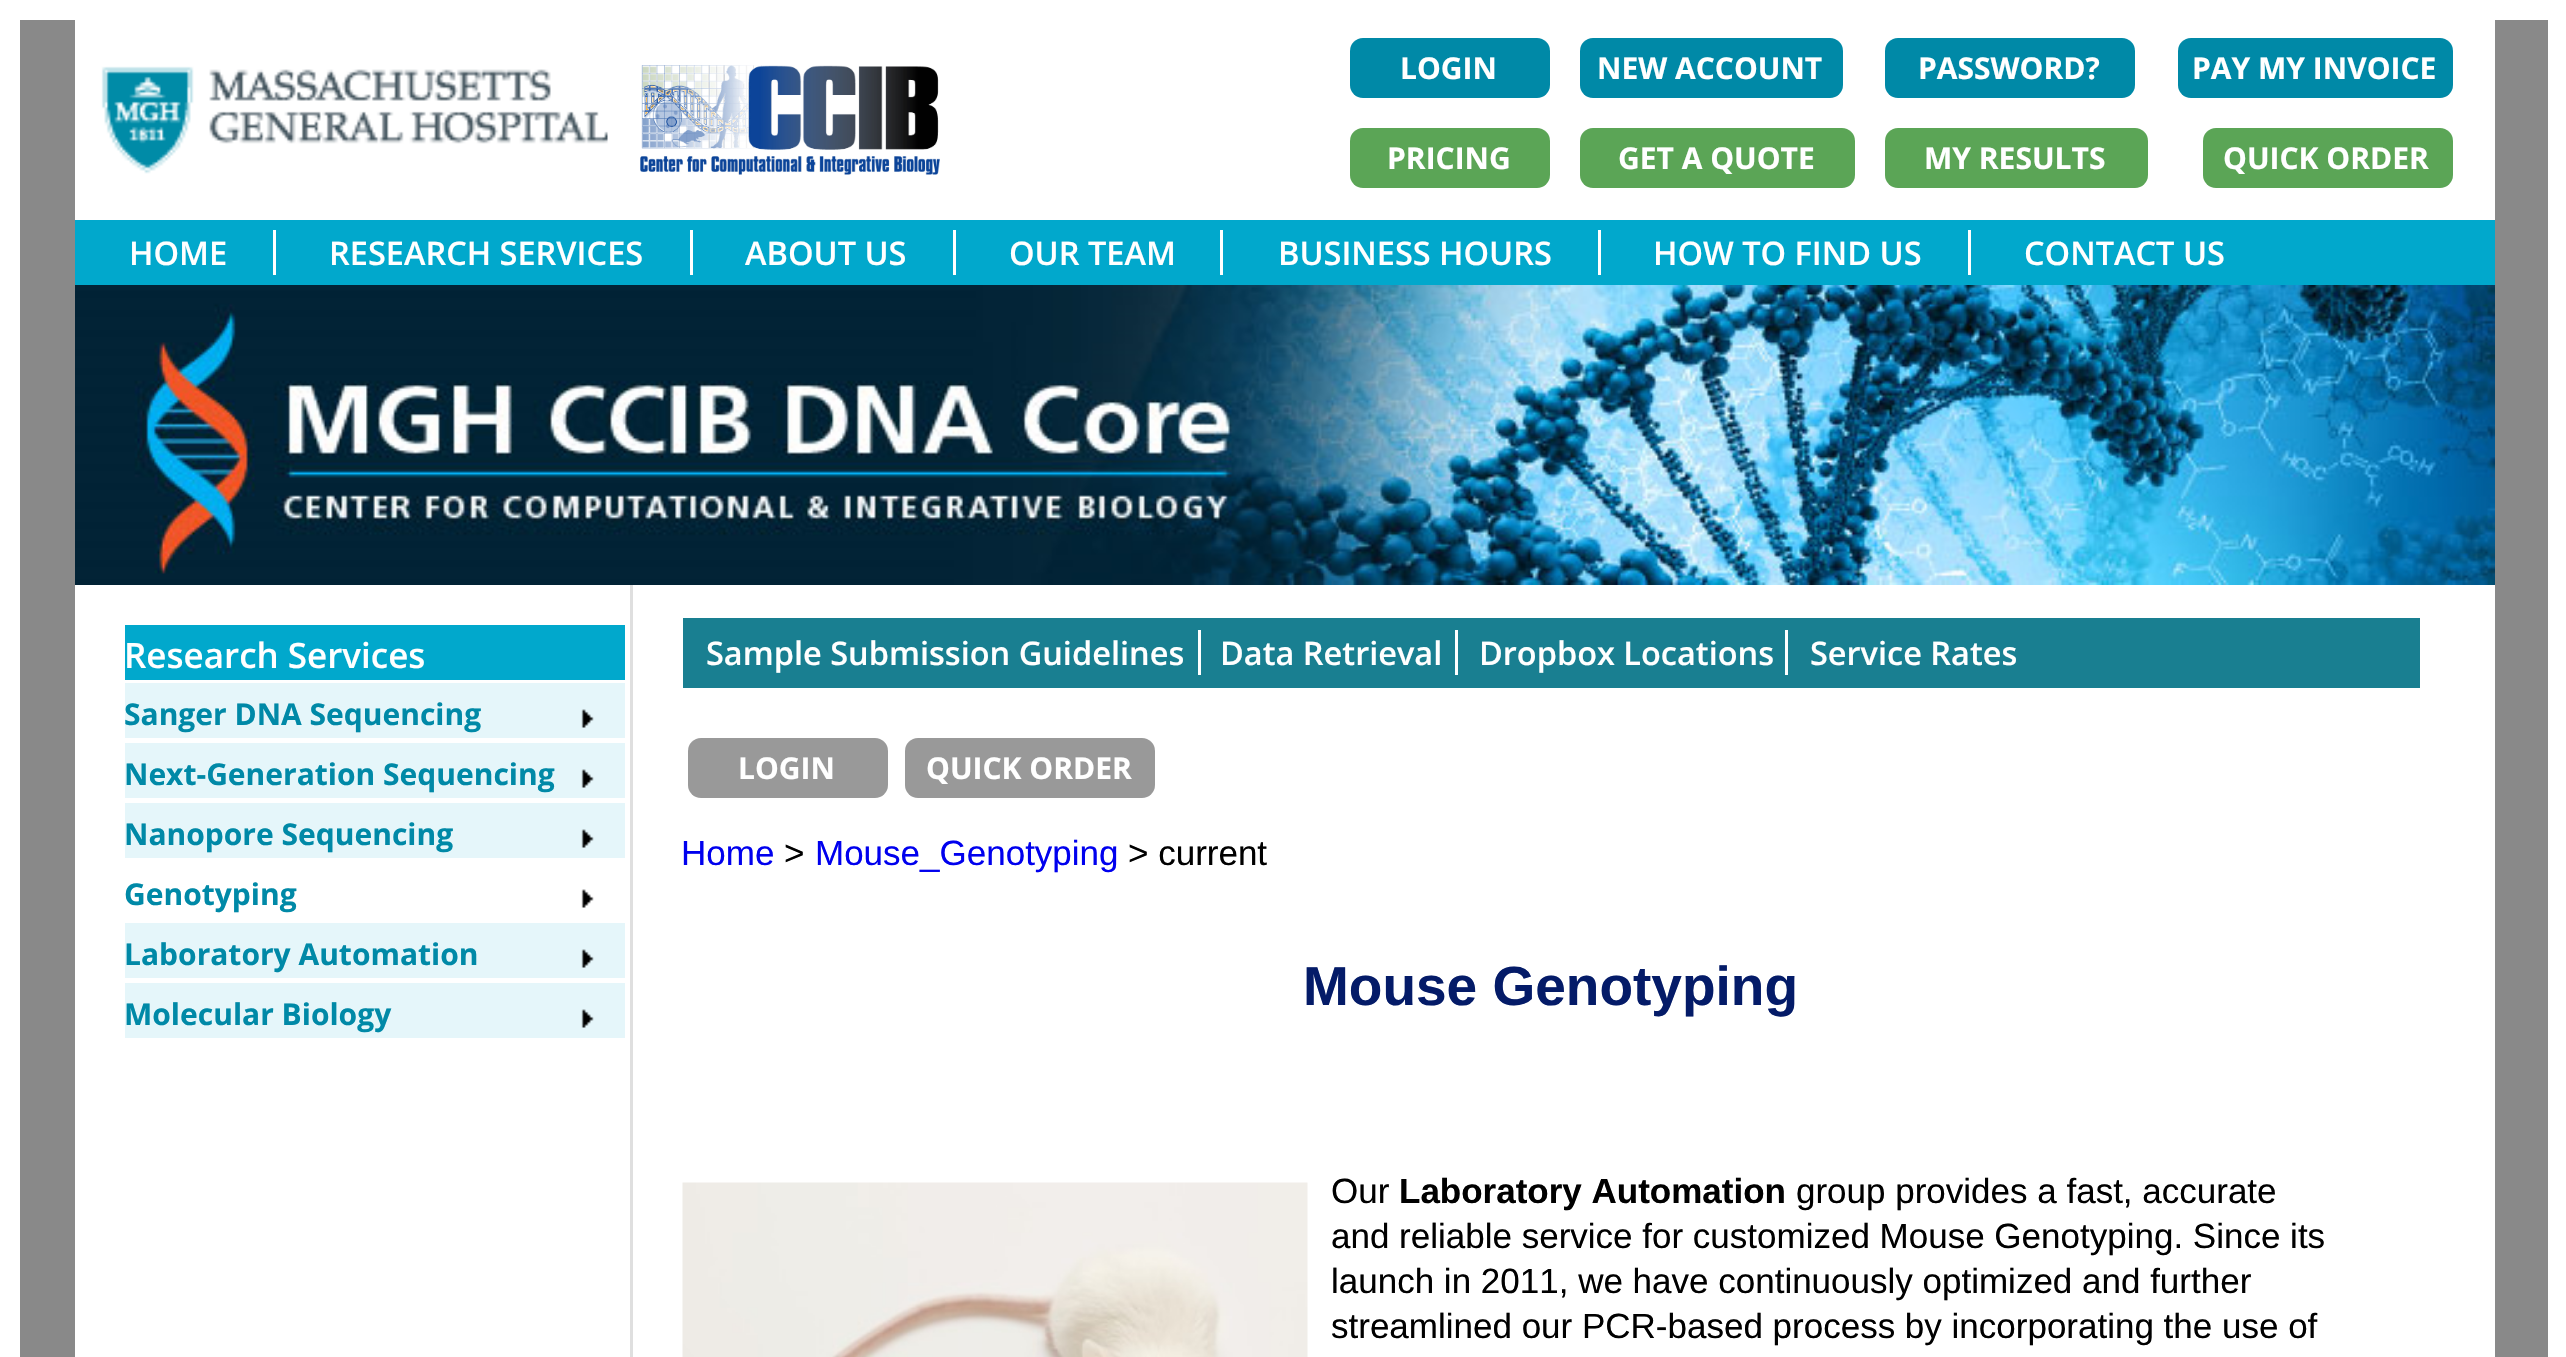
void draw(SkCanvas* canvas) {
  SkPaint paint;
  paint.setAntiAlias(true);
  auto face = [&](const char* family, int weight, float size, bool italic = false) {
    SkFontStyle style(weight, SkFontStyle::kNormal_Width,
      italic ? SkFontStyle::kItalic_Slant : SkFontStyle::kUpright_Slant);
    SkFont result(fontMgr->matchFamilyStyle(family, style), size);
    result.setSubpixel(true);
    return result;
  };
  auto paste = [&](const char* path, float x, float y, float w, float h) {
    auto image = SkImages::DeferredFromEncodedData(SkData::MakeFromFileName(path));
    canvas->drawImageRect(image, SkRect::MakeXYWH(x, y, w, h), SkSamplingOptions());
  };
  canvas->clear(0xffffffff);
  paint.setColor(0xff898989);
  canvas->drawRect(SkRect::MakeXYWH(20, 20, 2528, 1337), paint);
  paint.setColor(0xffffffff);
  canvas->drawRect(SkRect::MakeXYWH(75, 20, 2420, 1337), paint);
  paste("img/1.png", 101, 66, 507, 108);
  paste("img/2.png", 640, 65, 300, 110);
  paint.setColor(0xff0089a7);
  canvas->drawRoundRect(SkRect::MakeXYWH(1350, 38, 200, 60), 13, 13, paint);
  canvas->drawRoundRect(SkRect::MakeXYWH(1580, 38, 263, 60), 13, 13, paint);
  canvas->drawRoundRect(SkRect::MakeXYWH(1885, 38, 250, 60), 13, 13, paint);
  canvas->drawRoundRect(SkRect::MakeXYWH(2178, 38, 275, 60), 13, 13, paint);
  paint.setColor(0xff5ba556);
  canvas->drawRoundRect(SkRect::MakeXYWH(1350, 128, 200, 60), 13, 13, paint);
  canvas->drawRoundRect(SkRect::MakeXYWH(1580, 128, 275, 60), 13, 13, paint);
  canvas->drawRoundRect(SkRect::MakeXYWH(1885, 128, 263, 60), 13, 13, paint);
  canvas->drawRoundRect(SkRect::MakeXYWH(2203, 128, 250, 60), 13, 13, paint);
  {
    const struct { float x, y, w, h; SkColor color; } items[] = {
      {75, 220, 2420, 65, 0xff01a8cc},
      {273, 230, 3, 45, 0xffffffff},
      {690, 230, 3, 45, 0xffffffff},
      {953, 230, 3, 45, 0xffffffff},
      {1220, 230, 3, 45, 0xffffffff},
      {1598, 230, 3, 45, 0xffffffff},
      {1968, 230, 3, 45, 0xffffffff},
    };
    for (auto [x, y, w, h, color] : items) {
      paint.setColor(color);
      canvas->drawRect(SkRect::MakeXYWH(x, y, w, h), paint);
    }
  }
  paste("img/3.png", 75, 285, 2420, 300);
  paint.setColor(0xff01a8cc);
  canvas->drawRect(SkRect::MakeXYWH(125, 625, 500, 55), paint);
  paint.setColor(0xffe5f6fa);
  canvas->drawRect(SkRect::MakeXYWH(125, 683, 500, 55), paint);
  paste("img/4.png", 581, 709, 13, 19);
  canvas->drawRect(SkRect::MakeXYWH(125, 743, 500, 55), paint);
  paste("img/4.png", 581, 769, 13, 19);
  canvas->drawRect(SkRect::MakeXYWH(125, 803, 500, 55), paint);
  paste("img/4.png", 581, 829, 13, 19);
  paste("img/5.png", 581, 889, 13, 19);
  canvas->drawRect(SkRect::MakeXYWH(125, 923, 500, 55), paint);
  paste("img/4.png", 581, 949, 13, 19);
  canvas->drawRect(SkRect::MakeXYWH(125, 983, 500, 55), paint);
  paste("img/4.png", 581, 1009, 13, 19);
  {
    const struct { float x, y, w, h; SkColor color; } items[] = {
      {630, 585, 3, 772, 0xffdfdfdf},
      {683, 618, 1737, 70, 0xff197f91},
      {1198, 630, 3, 45, 0xffffffff},
      {1455, 630, 3, 45, 0xffffffff},
      {1785, 630, 3, 45, 0xffffffff},
    };
    for (auto [x, y, w, h, color] : items) {
      paint.setColor(color);
      canvas->drawRect(SkRect::MakeXYWH(x, y, w, h), paint);
    }
  }
  paint.setColor(0xff999999);
  canvas->drawRoundRect(SkRect::MakeXYWH(688, 738, 200, 60), 13, 13, paint);
  canvas->drawRoundRect(SkRect::MakeXYWH(905, 738, 250, 60), 13, 13, paint);
  paste("img/6.png", 682, 1182, 626, 175);
  auto f0 = face("Open Sans", 700, 30);
  paint.setColor(0xffffffff);
  {
    const struct { const char* s; float x, y; } items[] = {
      {"LOGIN", 1400, 79},
      {"NEW ACCOUNT", 1597, 79},
      {"PASSWORD?", 1918, 79},
      {"PAY MY INVOICE", 2192, 79},
      {"PRICING", 1387, 169},
      {"GET A QUOTE", 1618, 169},
      {"MY RESULTS", 1924, 169},
      {"QUICK ORDER", 2223, 169},
    };
    for (auto [s, x, y] : items) {
      canvas->drawString(s, x, y, f0, paint);
    }
  }
  auto f1 = face("Open Sans", 600, 32.5f);
  {
    const struct { const char* s; float x, y; } items[] = {
      {"HOME", 129, 265},
      {"RESEARCH SERVICES", 329, 265},
      {"ABOUT US", 745, 265},
      {"OUR TEAM", 1009, 265},
      {"BUSINESS HOURS", 1278, 265},
      {"HOW TO FIND US", 1653, 265},
      {"CONTACT US", 2024, 265},
    };
    for (auto [s, x, y] : items) {
      canvas->drawString(s, x, y, f1, paint);
    }
  }
  auto f2 = face("Open Sans", 600, 35);
  canvas->drawString("Research Services", 124, 668, f2, paint);
  paint.setColor(0xff0089a7);
  {
    const struct { const char* s; float x, y; } items[] = {
      {"Sanger DNA Sequencing", 124, 725},
      {"Next-Generation Sequencing", 124, 785},
      {"Nanopore Sequencing", 124, 845},
      {"Genotyping", 124, 905},
      {"Laboratory Automation", 124, 965},
      {"Molecular Biology", 124, 1025},
    };
    for (auto [s, x, y] : items) {
      canvas->drawString(s, x, y, f0, paint);
    }
  }
  paint.setColor(0xffffffff);
  {
    const struct { const char* s; float x, y; } items[] = {
      {"Sample Submission Guidelines", 706, 665},
      {"Data Retrieval", 1220, 665},
      {"Dropbox Locations", 1479, 665},
      {"Service Rates", 1810, 665},
    };
    for (auto [s, x, y] : items) {
      canvas->drawString(s, x, y, f1, paint);
    }
  }
  canvas->drawString("LOGIN", 738, 779, f0, paint);
  canvas->drawString("QUICK ORDER", 926, 779, f0, paint);
  auto f3 = face("Liberation Sans", 400, 35);
  paint.setColor(0xff0000ee);
  canvas->drawString("Home", 681, 865, f3, paint);
  paint.setColor(0xff000000);
  canvas->drawString(">", 784, 865, f3, paint);
  paint.setColor(0xff0000ee);
  canvas->drawString("Mouse_Genotyping", 815, 865, f3, paint);
  paint.setColor(0xff000000);
  canvas->drawString("> current", 1128, 865, f3, paint);
  auto f4 = face("Liberation Sans", 700, 55);
  paint.setColor(0xff041b68);
  canvas->drawString("Mouse Genotyping", 1303, 1005, f4, paint);
  paint.setColor(0xff000000);
  canvas->drawString("Our", 1331, 1203, f3, paint);
  auto f5 = face("Liberation Sans", 700, 35);
  canvas->drawString("Laboratory Automation", 1399, 1203, f5, paint);
  {
    const struct { const char* s; float x, y; } items[] = {
      {"group provides a fast, accurate", 1796, 1203},
      {"and reliable service for customized Mouse Genotyping. Since its", 1331, 1248},
      {"launch in 2011, we have continuously optimized and further", 1331, 1293},
      {"streamlined our PCR-based process by incorporating the use of", 1331, 1338},
    };
    for (auto [s, x, y] : items) {
      canvas->drawString(s, x, y, f3, paint);
    }
  }
}
